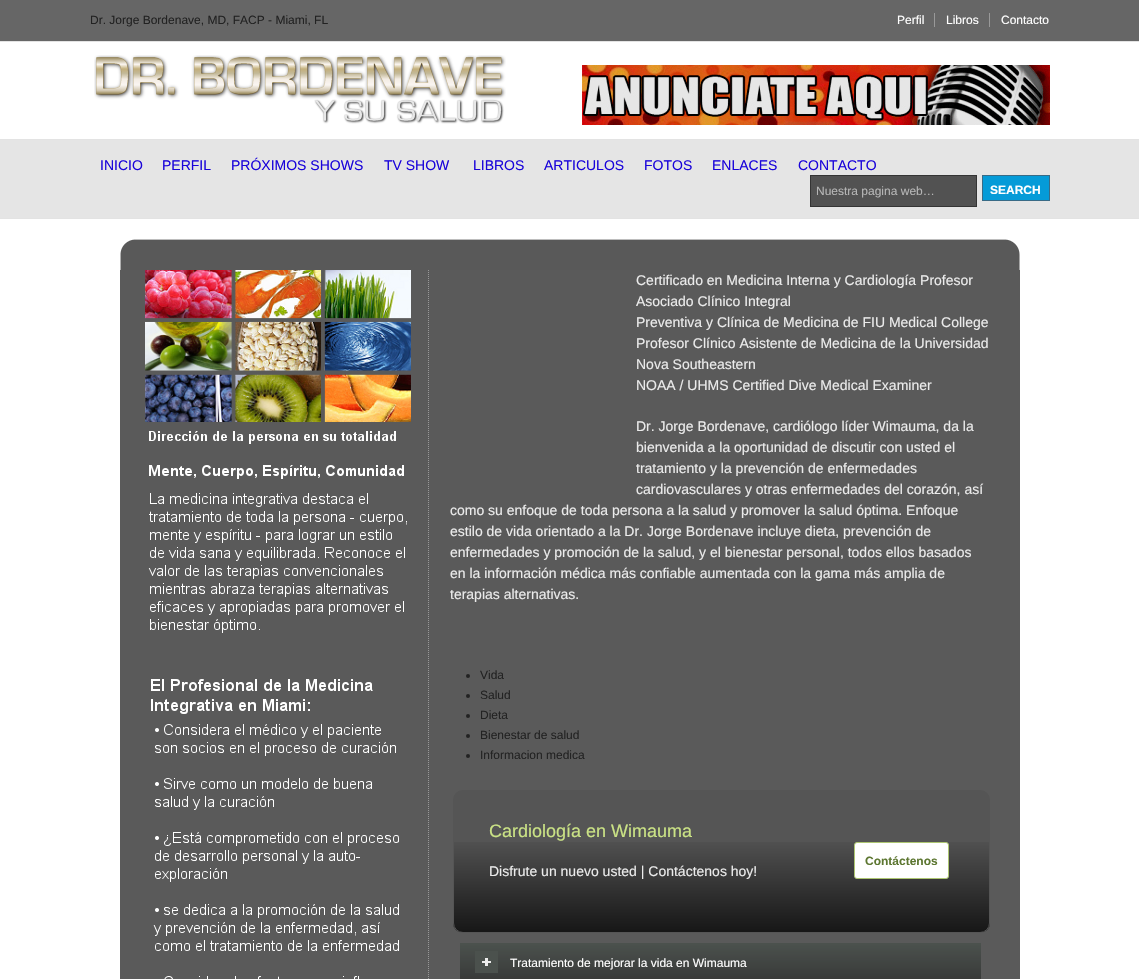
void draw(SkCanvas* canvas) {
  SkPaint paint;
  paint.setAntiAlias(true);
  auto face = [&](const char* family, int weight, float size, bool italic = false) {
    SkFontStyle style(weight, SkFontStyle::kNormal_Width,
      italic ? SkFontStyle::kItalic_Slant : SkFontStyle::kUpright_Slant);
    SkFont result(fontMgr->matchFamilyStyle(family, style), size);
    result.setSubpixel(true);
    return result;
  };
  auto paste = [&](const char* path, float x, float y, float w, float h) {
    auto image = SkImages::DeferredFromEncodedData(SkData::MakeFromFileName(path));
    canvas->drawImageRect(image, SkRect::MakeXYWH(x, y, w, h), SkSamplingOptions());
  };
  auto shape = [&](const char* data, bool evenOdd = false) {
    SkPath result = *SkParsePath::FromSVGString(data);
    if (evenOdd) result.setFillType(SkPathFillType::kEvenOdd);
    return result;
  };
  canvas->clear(0xffffffff);
  {
    const struct { float x, y, w, h; SkColor color; } items[] = {
      {0, 0, 1139, 41, 0xff666666},
      {0, 41, 1139, 1, 0xffe3e3e3},
      {934, 13, 1, 14, 0xff999999},
      {989, 13, 1, 14, 0xff999999},
      {0, 139, 1139, 1, 0xffe3e3e3},
    };
    for (auto [x, y, w, h, color] : items) {
      paint.setColor(color);
      canvas->drawRect(SkRect::MakeXYWH(x, y, w, h), paint);
    }
  }
  paste("img/1.png", 94, 55, 412, 69);
  paste("img/2.png", 582, 65, 468, 60);
  paint.setColor(0xffe5e5e5);
  canvas->drawRect(SkRect::MakeXYWH(0, 140, 1139, 78), paint);
  paint.setColor(0xffe3e3e3);
  canvas->drawRect(SkRect::MakeXYWH(0, 218, 1139, 1), paint);
  paint.setColor(0xff525252);
  canvas->drawRect(SkRect::MakeXYWH(810.5f, 175.5f, 166, 31), paint);
  paint.setStroke(true);
  paint.setStrokeWidth(1);
  paint.setColor(0xff343434);
  canvas->drawRect(SkRect::MakeXYWH(810.5f, 175.5f, 166, 31), paint);
  paint.setStroke(false);
  paint.setColor(0xff059bd8);
  canvas->drawRect(SkRect::MakeXYWH(982.5f, 175.5f, 67, 25), paint);
  paint.setStroke(true);
  paint.setColor(0xff396b86);
  canvas->drawRect(SkRect::MakeXYWH(982.5f, 175.5f, 67, 25), paint);
  paste("img/3.png", 120, 239, 900, 31);
  paint.setStroke(false);
  paint.setColor(0xff5a5a5a);
  canvas->drawRect(SkRect::MakeXYWH(120, 270, 900, 709), paint);
  paint.setStroke(true);
  paint.setColor(0xff999999);
  paint.setPathEffect(SkDashPathEffect::Make({{1, 1}}, 0));
  canvas->drawPath(shape("M428.5 270V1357"), paint);
  paint.setPathEffect(nullptr);
  paste("img/4.png", 145, 270, 266, 152);
  paste("img/5.png", 148, 431, 259, 202);
  paste("img/6.png", 151, 679, 248, 300);
  paint.setStroke(false);
  paint.setColor(0xff222222);
  canvas->drawCircle(468, 676, 2, paint);
  canvas->drawCircle(468, 696, 2, paint);
  canvas->drawCircle(468, 716, 2, paint);
  canvas->drawCircle(468, 736, 2, paint);
  canvas->drawCircle(468, 756, 2, paint);
  paint.setColor(0xff555555);
  canvas->drawRoundRect(SkRect::MakeXYWH(453, 790, 537, 143), 10, 10, paint);
  paste("img/7.png", 453, 842, 537, 90);
  paint.setStroke(true);
  canvas->drawRoundRect(SkRect::MakeXYWH(453.5f, 790.5f, 536, 142), 9.5f, 9.5f, paint);
  paint.setStroke(false);
  paint.setColor(0xffffffff);
  canvas->drawRoundRect(SkRect::MakeXYWH(854.5f, 842.5f, 94, 36), 2.5f, 2.5f, paint);
  paint.setStroke(true);
  paint.setColor(0xffadc671);
  canvas->drawRoundRect(SkRect::MakeXYWH(854.5f, 842.5f, 94, 36), 2.5f, 2.5f, paint);
  paste("img/8.png", 460, 943, 521, 36);
  paste("img/9.png", 475, 951, 23, 22);
  auto f0 = face("Liberation Sans", 400, 12);
  paint.setStroke(false);
  paint.setColor(0xff222222);
  canvas->drawString("Dr. Jorge Bordenave, MD, FACP - Miami, FL", 90, 24, f0, paint);
  paint.setColor(0xffffffff);
  {
    const struct { const char* s; float x, y; } items[] = {
      {"Perfil", 897, 24},
      {"Libros", 946, 24},
      {"Contacto", 1001, 24},
    };
    for (auto [s, x, y] : items) {
      canvas->drawString(s, x, y, f0, paint);
    }
  }
  auto f1 = face("Liberation Sans", 400, 14);
  paint.setColor(0xff1a04da);
  {
    const struct { const char* s; float x, y; } items[] = {
      {"INICIO", 100, 170},
      {"PERFIL", 162, 170},
      {"PRÓXIMOS SHOWS", 231, 170},
      {"TV SHOW", 384, 170},
      {"LIBROS", 473, 170},
      {"ARTICULOS", 544, 170},
      {"FOTOS", 644, 170},
      {"ENLACES", 712, 170},
      {"CONTACTO", 798, 170},
    };
    for (auto [s, x, y] : items) {
      canvas->drawString(s, x, y, f1, paint);
    }
  }
  paint.setColor(0xffb6b6b6);
  canvas->drawString("Nuestra pagina web…", 816, 195, f0, paint);
  auto f2 = face("Liberation Sans", 700, 12);
  paint.setColor(0xffffffff);
  canvas->drawString("SEARCH", 990, 194, f2, paint);
  paint.setColor(0xffebebeb);
  {
    const struct { const char* s; float x, y; } items[] = {
      {"Certificado en Medicina Interna y Cardiología Profesor", 636, 285},
      {"Asociado Clínico Integral", 636, 306},
      {"Preventiva y Clínica de Medicina de FIU Medical College", 636, 327},
      {"Profesor Clínico Asistente de Medicina de la Universidad", 636, 348},
      {"Nova Southeastern", 636, 369},
      {"NOAA / UHMS Certified Dive Medical Examiner", 636, 390},
      {"Dr. Jorge Bordenave, cardiólogo líder Wimauma, da la", 636, 431},
      {"bienvenida a la oportunidad de discutir con usted el", 636, 452},
      {"tratamiento y la prevención de enfermedades", 636, 473},
      {"cardiovasculares y otras enfermedades del corazón, así", 636, 494},
      {"como su enfoque de toda persona a la salud y promover la salud óptima. Enfoque", 450, 515},
      {"estilo de vida orientado a la Dr. Jorge Bordenave incluye dieta, prevención de", 450, 536},
      {"enfermedades y promoción de la salud, y el bienestar personal, todos ellos basados", 450, 557},
      {"en la información médica más confiable aumentada con la gama más amplia de", 450, 578},
      {"terapias alternativas.", 450, 599},
    };
    for (auto [s, x, y] : items) {
      canvas->drawString(s, x, y, f1, paint);
    }
  }
  paint.setColor(0xff222222);
  {
    const struct { const char* s; float x, y; } items[] = {
      {"Vida", 480, 679},
      {"Salud", 480, 699},
      {"Dieta", 480, 719},
      {"Bienestar de salud", 480, 739},
      {"Informacion medica", 480, 759},
    };
    for (auto [s, x, y] : items) {
      canvas->drawString(s, x, y, f0, paint);
    }
  }
  auto f3 = face("Liberation Sans", 400, 18);
  paint.setColor(0xffcae285);
  canvas->drawString("Cardiología en Wimauma", 489, 837, f3, paint);
  paint.setColor(0xff5d7731);
  canvas->drawString("Contáctenos", 865, 865, f2, paint);
  paint.setColor(0xffebebeb);
  canvas->drawString("Disfrute un nuevo usted | Contáctenos hoy!", 489, 876, f1, paint);
  paint.setColor(0xffffffff);
  canvas->drawString("Tratamiento de mejorar la vida en Wimauma", 510, 967, f0, paint);
}
